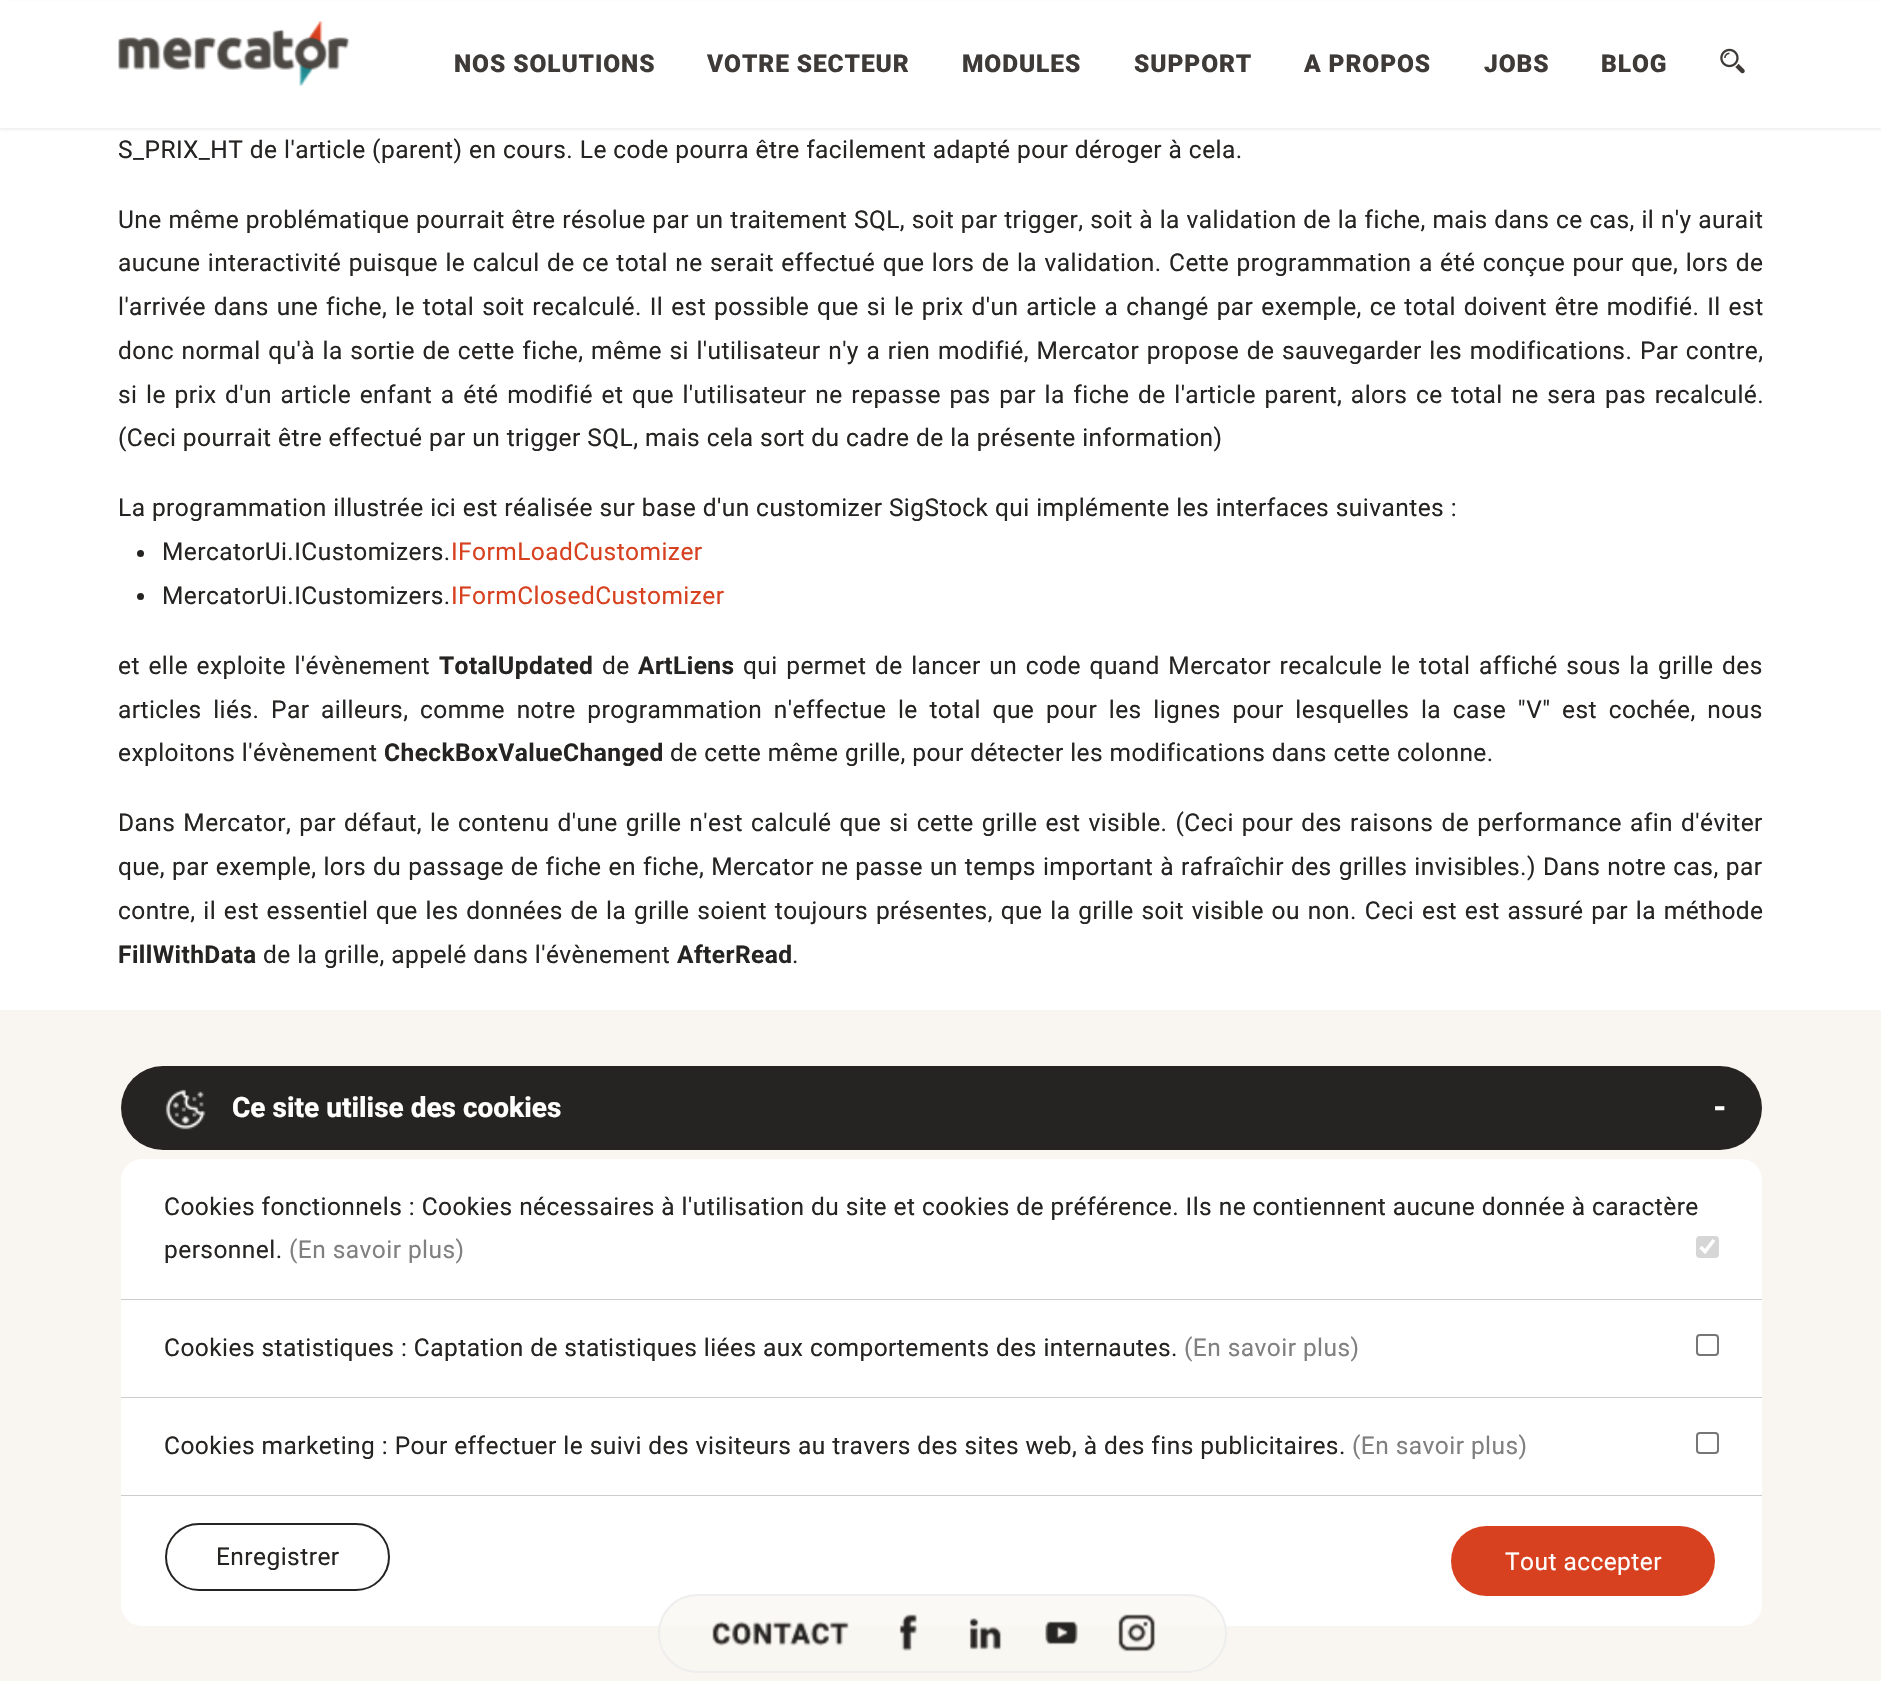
void draw(SkCanvas* canvas) {
  SkPaint paint;
  paint.setAntiAlias(true);
  auto face = [&](const char* family, int weight, float size, bool italic = false) {
    SkFontStyle style(weight, SkFontStyle::kNormal_Width,
      italic ? SkFontStyle::kItalic_Slant : SkFontStyle::kUpright_Slant);
    SkFont result(fontMgr->matchFamilyStyle(family, style), size);
    result.setSubpixel(true);
    return result;
  };
  auto writeSpaced = [&](const char* s, float x, float y, const SkFont& font, const SkPaint& ink, float letter, float word) {
    std::vector<SkGlyphID> glyphs(font.countText(s, strlen(s), SkTextEncoding::kUTF8));
    std::vector<float> xs(glyphs.size());
    font.textToGlyphs(s, strlen(s), SkTextEncoding::kUTF8, glyphs);
    font.getXPos(glyphs, xs, x);
    float extra = 0;
    for (size_t i = 0; i < glyphs.size(); i++) {
      xs[i] += extra;
      extra += letter + word * (glyphs[i] == font.unicharToGlyph(' '));
    }
    canvas->drawTextBlob(SkTextBlob::MakeFromPosHGlyphs(glyphs, xs, y, font), 0, 0, ink);
  };
  auto paste = [&](const char* path, float x, float y, float w, float h) {
    auto image = SkImages::DeferredFromEncodedData(SkData::MakeFromFileName(path));
    canvas->drawImageRect(image, SkRect::MakeXYWH(x, y, w, h), SkSamplingOptions());
  };
  auto shape = [&](const char* data, bool evenOdd = false) {
    SkPath result = *SkParsePath::FromSVGString(data);
    if (evenOdd) result.setFillType(SkPathFillType::kEvenOdd);
    return result;
  };
  canvas->clear(0xffffffff);
  paint.setColor(0x0f000000);
  paint.setMaskFilter(SkMaskFilter::MakeBlur(kNormal_SkBlurStyle, 1));
  canvas->drawRect(SkRect::MakeXYWH(0, 2, 1881, 128), paint);
  paint.setMaskFilter(nullptr);
  paint.setColor(0xffffffff);
  canvas->drawRect(SkRect::MakeXYWH(0, 1, 1881, 127), paint);
  paste("img/1.png", 118, 21, 232, 65);
  paste("img/2.png", 1720, 48, 25, 26);
  paint.setColor(0xff262422);
  canvas->drawCircle(140.5f, 553.5f, 3.5f, paint);
  canvas->drawCircle(140.5f, 596.5f, 3.5f, paint);
  paint.setColor(0xfff9f6f1);
  canvas->drawRect(SkRect::MakeXYWH(0, 1010, 1881, 671), paint);
  paint.setColor(0xff262422);
  canvas->drawRoundRect(SkRect::MakeXYWH(121, 1066, 1641, 84), 42, 42, paint);
  paste("img/3.png", 165, 1089, 41, 41);
  paint.setColor(0xffffffff);
  canvas->drawPath(shape("M142 1159H1741C1752.5 1159 1762 1168.5 1762 1180V1300H121V1180C121 1168.5 130.5 1159 142 1159Z"), paint);
  paint.setColor(0xffcccccc);
  canvas->drawRect(SkRect::MakeXYWH(121, 1299, 1641, 1), paint);
  paint.setColor(0xffd6d6d6);
  canvas->drawRoundRect(SkRect::MakeXYWH(1696, 1236, 23, 22), 4, 4, paint);
  paint.setStroke(true);
  paint.setStrokeWidth(3.6f);
  paint.setColor(0xffffffff);
  canvas->drawPath(shape("M1700.5 1247L1705 1251.5L1714 1240"), paint);
  paint.setStroke(false);
  canvas->drawRect(SkRect::MakeXYWH(121, 1300, 1641, 97), paint);
  paint.setColor(0xffcccccc);
  canvas->drawRect(SkRect::MakeXYWH(121, 1397, 1641, 1), paint);
  paint.setStroke(true);
  paint.setStrokeWidth(2);
  paint.setColor(0xff767676);
  canvas->drawRoundRect(SkRect::MakeXYWH(1697, 1335, 21, 20), 3, 3, paint);
  paint.setStroke(false);
  paint.setColor(0xffffffff);
  canvas->drawRect(SkRect::MakeXYWH(121, 1398, 1641, 97), paint);
  paint.setColor(0xffcccccc);
  canvas->drawRect(SkRect::MakeXYWH(121, 1495, 1641, 1), paint);
  paint.setStroke(true);
  paint.setColor(0xff767676);
  canvas->drawRoundRect(SkRect::MakeXYWH(1697, 1433, 21, 20), 3, 3, paint);
  paint.setStroke(false);
  paint.setColor(0xffffffff);
  canvas->drawPath(shape("M121 1496H1762V1605C1762 1616.5 1752.5 1626 1741 1626H142C130.5 1626 121 1616.5 121 1605Z"), paint);
  paint.setStroke(true);
  paint.setColor(0xff262422);
  canvas->drawRoundRect(SkRect::MakeXYWH(166, 1524, 223, 66), 33, 33, paint);
  paint.setStroke(false);
  paint.setColor(0xffd74120);
  canvas->drawRoundRect(SkRect::MakeXYWH(1451, 1526, 264, 70), 35, 35, paint);
  paint.setColor(0xb3f9f6f1);
  canvas->drawRoundRect(SkRect::MakeXYWH(659, 1595, 567, 77), 38.5f, 38.5f, paint);
  paint.setStroke(true);
  paint.setColor(0xffeeeeee);
  canvas->drawRoundRect(SkRect::MakeXYWH(659, 1595, 567, 77), 38.5f, 38.5f, paint);
  paste("img/4.png", 712, 1621, 137, 25);
  paste("img/5.png", 899, 1614, 19, 37);
  paste("img/6.png", 969, 1618, 33, 32);
  paste("img/7.png", 1045, 1621, 33, 24);
  paste("img/8.png", 1118, 1614, 38, 38);
  auto f0 = face("Roboto", 900, 24.5f);
  paint.setStroke(false);
  paint.setColor(0xff3d3a37);
  {
    const struct { const char* s; float x, y; } items[] = {
      {"NOS SOLUTIONS", 454, 72},
      {"VOTRE SECTEUR", 707, 72},
      {"MODULES", 962, 72},
      {"SUPPORT", 1134, 72},
      {"A PROPOS", 1304, 72},
      {"JOBS", 1484, 72},
      {"BLOG", 1601, 72},
    };
    for (auto [s, x, y] : items) {
      writeSpaced(s, x, y, f0, paint, 0.9f, 0);
    }
  }
  auto f1 = face("Roboto", 400, 24.5f);
  paint.setColor(0xff262422);
  writeSpaced("S_PRIX_HT de l'article (parent) en cours. Le code pourra être facilement adapté pour déroger à cela.", 118, 158, f1, paint, 0.44f, 0);
  writeSpaced("Une même problématique pourrait être résolue par un traitement SQL, soit par trigger, soit à la validation de la fiche, mais dans ce cas, il n'y aurait", 118, 228, f1, paint, 0.44f, 0.15f);
  writeSpaced("aucune interactivité puisque le calcul de ce total ne serait effectué que lors de la validation. Cette programmation a été conçue pour que, lors de", 118, 271, f1, paint, 0.44f, 0.9f);
  writeSpaced("l'arrivée dans une fiche, le total soit recalculé. Il est possible que si le prix d'un article a changé par exemple, ce total doivent être modifié. Il est", 118, 315, f1, paint, 0.44f, 1.35f);
  writeSpaced("donc normal qu'à la sortie de cette fiche, même si l'utilisateur n'y a rien modifié, Mercator propose de sauvegarder les modifications. Par contre,", 118, 359, f1, paint, 0.44f, 1.05f);
  writeSpaced("si le prix d'un article enfant a été modifié et que l'utilisateur ne repasse pas par la fiche de l'article parent, alors ce total ne sera pas recalculé.", 118, 403, f1, paint, 0.44f, 2.1f);
  {
    const struct { const char* s; float x, y; } items[] = {
      {"(Ceci pourrait être effectué par un trigger SQL, mais cela sort du cadre de la présente information)", 118, 446},
      {"La programmation illustrée ici est réalisée sur base d'un customizer SigStock qui implémente les interfaces suivantes :", 118, 516},
      {"MercatorUi.ICustomizers.", 162, 560},
    };
    for (auto [s, x, y] : items) {
      writeSpaced(s, x, y, f1, paint, 0.44f, 0);
    }
  }
  paint.setColor(0xffd74120);
  writeSpaced("IFormLoadCustomizer", 451, 560, f1, paint, 0.44f, 0);
  paint.setColor(0xff262422);
  writeSpaced("MercatorUi.ICustomizers.", 162, 604, f1, paint, 0.44f, 0);
  paint.setColor(0xffd74120);
  writeSpaced("IFormClosedCustomizer", 451, 604, f1, paint, 0.44f, 0);
  paint.setColor(0xff262422);
  writeSpaced("et elle exploite l'évènement", 118, 674, f1, paint, 0.44f, 2);
  auto f2 = face("Roboto", 700, 24.5f);
  writeSpaced("TotalUpdated", 439, 674, f2, paint, 0.44f, 0);
  writeSpaced("de", 602, 674, f1, paint, 0.44f, 0);
  writeSpaced("ArtLiens", 638, 674, f2, paint, 0.44f, 0);
  writeSpaced("qui permet de lancer un code quand Mercator recalcule le total affiché sous la grille des", 743, 674, f1, paint, 0.44f, 2);
  writeSpaced("articles liés. Par ailleurs, comme notre programmation n'effectue le total que pour les lignes pour lesquelles la case \"V\" est cochée, nous", 118, 718, f1, paint, 0.44f, 5.1f);
  writeSpaced("exploitons l'évènement", 118, 761, f1, paint, 0.44f, 0);
  writeSpaced("CheckBoxValueChanged", 384, 761, f2, paint, 0.44f, 0);
  writeSpaced("de cette même grille, pour détecter les modifications dans cette colonne.", 670, 761, f1, paint, 0.44f, 0);
  writeSpaced("Dans Mercator, par défaut, le contenu d'une grille n'est calculé que si cette grille est visible. (Ceci pour des raisons de performance afin d'éviter", 118, 831, f1, paint, 0.44f, 1.5f);
  writeSpaced("que, par exemple, lors du passage de fiche en fiche, Mercator ne passe un temps important à rafraîchir des grilles invisibles.) Dans notre cas, par", 118, 875, f1, paint, 0.44f, 0.5f);
  writeSpaced("contre, il est essentiel que les données de la grille soient toujours présentes, que la grille soit visible ou non. Ceci est est assuré par la méthode", 118, 919, f1, paint, 0.44f, 1.25f);
  writeSpaced("FillWithData", 118, 963, f2, paint, 0.44f, 0);
  writeSpaced("de la grille, appelé dans l'évènement", 263, 963, f1, paint, 0.44f, 0);
  writeSpaced("AfterRead", 677, 963, f2, paint, 0.44f, 0);
  writeSpaced(".", 792, 963, f1, paint, 0.44f, 0);
  auto f3 = face("Roboto", 800, 28);
  paint.setColor(0xffffffff);
  canvas->drawString("Ce site utilise des cookies", 232, 1117, f3, paint);
  auto f4 = face("Roboto", 800, 32);
  canvas->drawString("-", 1713, 1118, f4, paint);
  paint.setColor(0xff262422);
  writeSpaced("Cookies fonctionnels : Cookies nécessaires à l'utilisation du site et cookies de préférence. Ils ne contiennent aucune donnée à caractère", 164, 1215, f1, paint, 0.44f, 0);
  writeSpaced("personnel.", 164, 1258, f1, paint, 0.44f, 0);
  paint.setColor(0xff808080);
  writeSpaced("(En savoir plus)", 289, 1258, f1, paint, 0.44f, 0);
  paint.setColor(0xff262422);
  writeSpaced("Cookies statistiques : Captation de statistiques liées aux comportements des internautes.", 164, 1356, f1, paint, 0.44f, 0);
  paint.setColor(0xff808080);
  writeSpaced("(En savoir plus)", 1184, 1356, f1, paint, 0.44f, 0);
  paint.setColor(0xff262422);
  writeSpaced("Cookies marketing : Pour effectuer le suivi des visiteurs au travers des sites web, à des fins publicitaires.", 164, 1454, f1, paint, 0.44f, 0);
  paint.setColor(0xff808080);
  writeSpaced("(En savoir plus)", 1352, 1454, f1, paint, 0.44f, 0);
  paint.setColor(0xff262422);
  writeSpaced("Enregistrer", 216, 1565, f1, paint, 0.44f, 0);
  paint.setColor(0xffffffff);
  writeSpaced("Tout accepter", 1505, 1570, f1, paint, 0.44f, 0);
}
